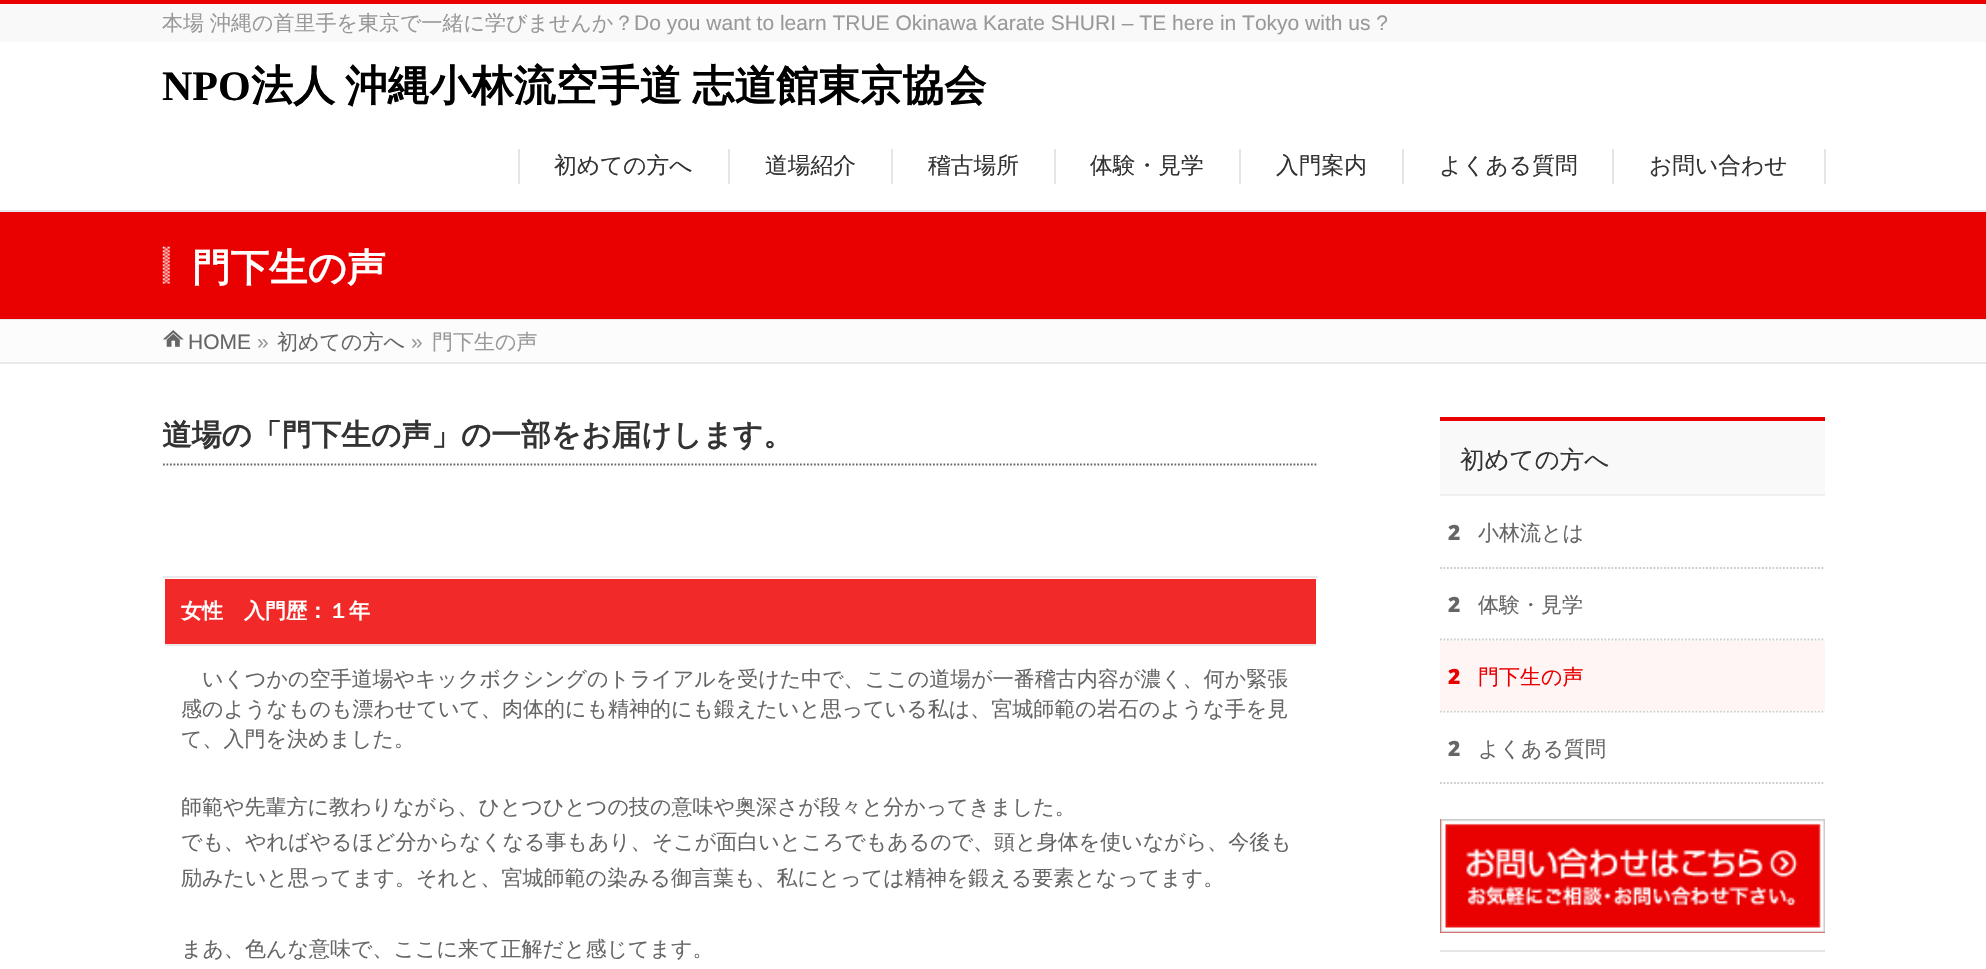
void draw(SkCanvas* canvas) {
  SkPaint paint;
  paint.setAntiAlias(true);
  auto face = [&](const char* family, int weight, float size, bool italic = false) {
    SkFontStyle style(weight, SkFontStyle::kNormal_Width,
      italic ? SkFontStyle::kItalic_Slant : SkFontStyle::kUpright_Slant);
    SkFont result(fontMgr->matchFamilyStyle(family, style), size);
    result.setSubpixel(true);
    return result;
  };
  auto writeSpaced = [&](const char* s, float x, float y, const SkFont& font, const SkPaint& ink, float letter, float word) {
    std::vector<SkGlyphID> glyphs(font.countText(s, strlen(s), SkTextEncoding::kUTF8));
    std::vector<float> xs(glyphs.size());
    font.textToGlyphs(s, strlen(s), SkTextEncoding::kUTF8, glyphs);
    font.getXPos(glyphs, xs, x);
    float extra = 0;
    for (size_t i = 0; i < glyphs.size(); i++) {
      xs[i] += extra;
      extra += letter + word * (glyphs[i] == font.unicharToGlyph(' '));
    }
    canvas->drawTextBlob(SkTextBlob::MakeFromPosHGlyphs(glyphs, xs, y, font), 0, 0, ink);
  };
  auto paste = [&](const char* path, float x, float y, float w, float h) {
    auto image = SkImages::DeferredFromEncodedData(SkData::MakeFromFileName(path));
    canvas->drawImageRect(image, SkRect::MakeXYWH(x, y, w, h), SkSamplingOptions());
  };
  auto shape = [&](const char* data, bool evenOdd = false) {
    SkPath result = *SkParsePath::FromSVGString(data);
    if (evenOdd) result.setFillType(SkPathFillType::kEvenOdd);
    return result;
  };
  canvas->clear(0xffffffff);
  {
    const struct { float x, y, w, h; SkColor color; } items[] = {
      {0, 4, 1986, 38, 0xfff9f9f9},
      {0, 0, 1986, 4, 0xffe90000},
      {728, 149, 2, 35, 0xffe5e5e5},
      {518, 149, 2, 35, 0xffe5e5e5},
      {891, 149, 2, 35, 0xffe5e5e5},
      {1054, 149, 2, 35, 0xffe5e5e5},
      {1239, 149, 2, 35, 0xffe5e5e5},
      {1402, 149, 2, 35, 0xffe5e5e5},
      {1612, 149, 2, 35, 0xffe5e5e5},
      {1824, 149, 2, 35, 0xffe5e5e5},
      {0, 212, 1986, 107, 0xffe90000},
      {0, 210, 1986, 2, 0xffe9e9e9},
      {0, 319, 1986, 1, 0xffe9e9e9},
    };
    for (auto [x, y, w, h, color] : items) {
      paint.setColor(color);
      canvas->drawRect(SkRect::MakeXYWH(x, y, w, h), paint);
    }
  }
  paste("img/1.png", 162, 246, 8, 38);
  paint.setColor(0xfffcfcfc);
  canvas->drawRect(SkRect::MakeXYWH(0, 320, 1986, 42), paint);
  paste("img/2.png", 163, 330, 21, 17);
  paint.setColor(0xffe9e9e9);
  canvas->drawRect(SkRect::MakeXYWH(0, 362, 1986, 2), paint);
  paint.setStroke(true);
  paint.setStrokeWidth(1.8f);
  paint.setColor(0xff666666);
  paint.setPathEffect(SkDashPathEffect::Make({{1.75f, 1.75f}}, 0));
  canvas->drawPath(shape("M163 464.5H1318"), paint);
  paint.setPathEffect(nullptr);
  paint.setStroke(false);
  {
    const struct { float x, y, w, h; SkColor color; } items[] = {
      {163, 576, 1155, 2, 0xffe9e9e9},
      {165, 579, 1151, 65, 0xfff22929},
      {165, 644, 1151, 2, 0xffe9e9e9},
      {1440, 421, 385, 73, 0xfff9f9f9},
      {1440, 417, 385, 4, 0xffe90000},
      {1440, 494, 385, 2, 0xffefefef},
    };
    for (auto [x, y, w, h, color] : items) {
      paint.setColor(color);
      canvas->drawRect(SkRect::MakeXYWH(x, y, w, h), paint);
    }
  }
  paint.setStroke(true);
  paint.setColor(0xffcccccc);
  paint.setPathEffect(SkDashPathEffect::Make({{1.75f, 1.75f}}, 0));
  canvas->drawPath(shape("M1440 568H1825"), paint);
  paint.setPathEffect(nullptr);
  paint.setPathEffect(SkDashPathEffect::Make({{1.75f, 1.75f}}, 0));
  canvas->drawPath(shape("M1440 639.5H1825"), paint);
  paint.setPathEffect(nullptr);
  paint.setPathEffect(SkDashPathEffect::Make({{1.75f, 1.75f}}, 0));
  canvas->drawPath(shape("M1440 711.5H1825"), paint);
  paint.setPathEffect(nullptr);
  paint.setStroke(false);
  paint.setColor(0xfffff5f5);
  canvas->drawRect(SkRect::MakeXYWH(1440, 641, 385, 70), paint);
  paint.setStroke(true);
  paint.setColor(0xffcccccc);
  paint.setPathEffect(SkDashPathEffect::Make({{1.75f, 1.75f}}, 0));
  canvas->drawPath(shape("M1440 783H1825"), paint);
  paint.setPathEffect(nullptr);
  paint.setStroke(false);
  paint.setColor(0xffe90000);
  canvas->drawRect(SkRect::MakeXYWH(1440, 819, 385, 114), paint);
  paste("img/3.png", 1440, 819, 385, 114);
  paint.setColor(0xffe5e5e5);
  canvas->drawRect(SkRect::MakeXYWH(1440, 950, 385, 2), paint);
  auto f0 = face("WenQuanYi Zen Hei", 500, 21);
  paint.setColor(0xff999999);
  canvas->drawString("本場", 162, 30, f0, paint);
  canvas->drawString("沖縄の首里手を東京で一緒に学びませんか？", 210, 30, f0, paint);
  auto f1 = face("Liberation Sans", 400, 21);
  canvas->drawString("Do you want to learn TRUE Okinawa Karate SHURI – TE here in Tokyo with us ?", 634, 30, f1, paint);
  auto f2 = face("Liberation Serif", 700, 42);
  paint.setColor(0xff000000);
  canvas->drawString("NPO", 162, 100, f2, paint);
  auto f3 = face("WenQuanYi Zen Hei", 700, 42);
  writeSpaced("法人 沖縄小林流空手道 志道館東京協会", 251, 100, f3, paint, 0, -2);
  auto f4 = face("WenQuanYi Zen Hei", 500, 22.75f);
  paint.setColor(0xff333333);
  {
    const struct { const char* s; float x, y; } items[] = {
      {"初めての方へ", 554, 173},
      {"道場紹介", 765, 173},
      {"稽古場所", 928, 173},
      {"体験・見学", 1090, 173},
      {"入門案内", 1276, 173},
      {"よくある質問", 1439, 173},
      {"お問い合わせ", 1649, 173},
    };
    for (auto [s, x, y] : items) {
      canvas->drawString(s, x, y, f4, paint);
    }
  }
  auto f5 = face("WenQuanYi Zen Hei", 700, 38.5f);
  paint.setColor(0xffffffff);
  canvas->drawString("門下生の声", 192, 281, f5, paint);
  paint.setColor(0xff666666);
  canvas->drawString("HOME", 188, 349, f1, paint);
  paint.setColor(0xff999999);
  canvas->drawString("»", 257, 349, f1, paint);
  paint.setColor(0xff666666);
  canvas->drawString("初めての方へ", 277, 349, f0, paint);
  paint.setColor(0xff999999);
  canvas->drawString("»", 411, 349, f1, paint);
  canvas->drawString("門下生の声", 432, 349, f0, paint);
  auto f6 = face("WenQuanYi Zen Hei", 700, 29.75f);
  paint.setColor(0xff333333);
  canvas->drawString("道場の「門下生の声」の一部をお届けします。", 162, 445, f6, paint);
  auto f7 = face("WenQuanYi Zen Hei", 700, 21);
  paint.setColor(0xffffffff);
  canvas->drawString("女性　入門歴：１年", 181, 618, f7, paint);
  paint.setColor(0xff666666);
  {
    const struct { const char* s; float x, y; } items[] = {
      {"いくつかの空手道場やキックボクシングのトライアルを受けた中で、ここの道場が一番稽古内容が濃く、何か緊張", 202, 686},
      {"感のようなものも漂わせていて、肉体的にも精神的にも鍛えたいと思っている私は、宮城師範の岩石のような手を見", 181, 716},
      {"て、入門を決めました。", 181, 746},
      {"師範や先輩方に教わりながら、ひとつひとつの技の意味や奥深さが段々と分かってきました。", 181, 814},
      {"でも、やればやるほど分からなくなる事もあり、そこが面白いところでもあるので、頭と身体を使いながら、今後も", 181, 849},
      {"励みたいと思ってます。それと、宮城師範の染みる御言葉も、私にとっては精神を鍛える要素となってます。", 181, 885},
      {"まあ、色んな意味で、ここに来て正解だと感じてます。", 181, 956},
    };
    for (auto [s, x, y] : items) {
      canvas->drawString(s, x, y, f0, paint);
    }
  }
  auto f8 = face("WenQuanYi Zen Hei", 500, 24.5f);
  paint.setColor(0xff333333);
  canvas->drawString("初めての方へ", 1460, 468, f8, paint);
  auto f9 = face("Noto Sans", 900, 21);
  paint.setColor(0xff666666);
  canvas->drawString("2", 1448, 540, f9, paint);
  canvas->drawString("小林流とは", 1478, 540, f0, paint);
  canvas->drawString("2", 1448, 612, f9, paint);
  canvas->drawString("体験・見学", 1478, 612, f0, paint);
  paint.setColor(0xffe90000);
  canvas->drawString("2", 1448, 684, f9, paint);
  canvas->drawString("門下生の声", 1478, 684, f0, paint);
  paint.setColor(0xff666666);
  canvas->drawString("2", 1448, 756, f9, paint);
  canvas->drawString("よくある質問", 1478, 756, f0, paint);
}
